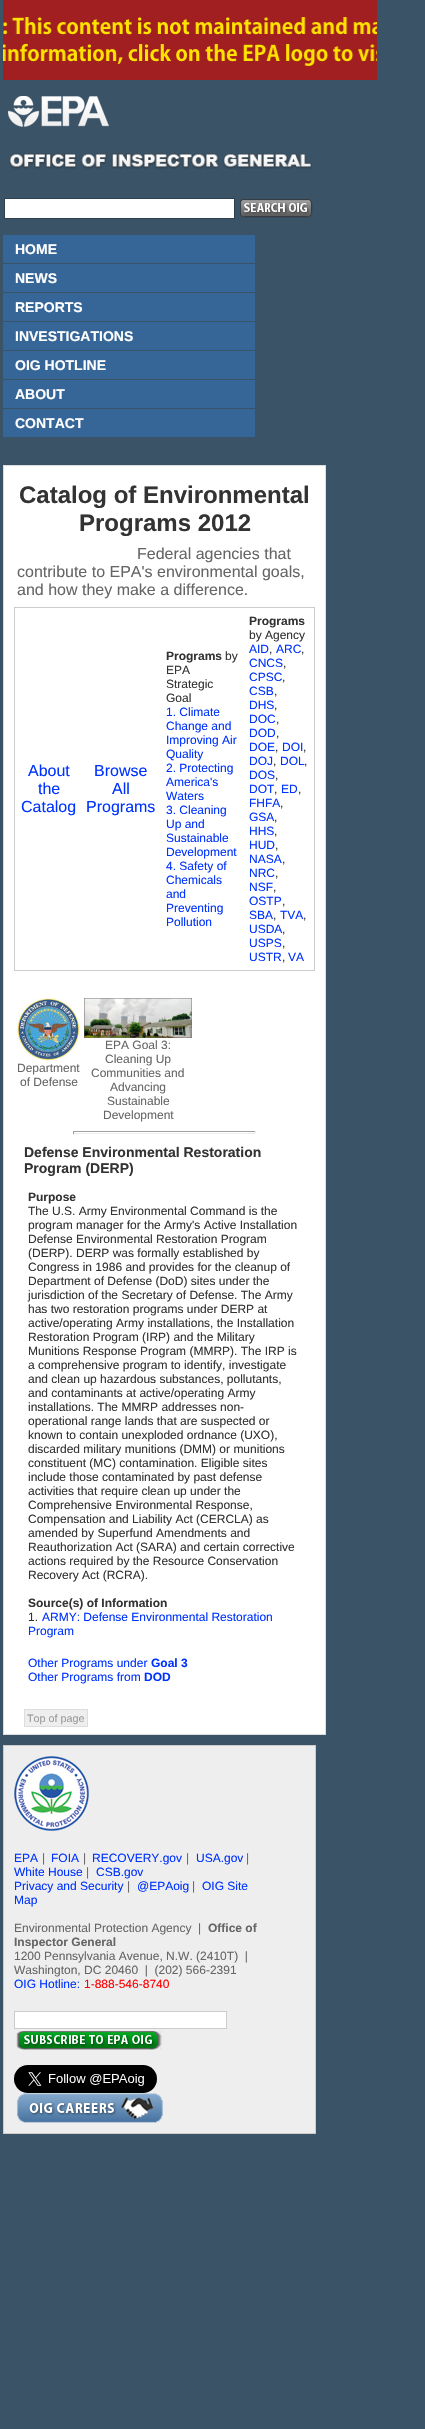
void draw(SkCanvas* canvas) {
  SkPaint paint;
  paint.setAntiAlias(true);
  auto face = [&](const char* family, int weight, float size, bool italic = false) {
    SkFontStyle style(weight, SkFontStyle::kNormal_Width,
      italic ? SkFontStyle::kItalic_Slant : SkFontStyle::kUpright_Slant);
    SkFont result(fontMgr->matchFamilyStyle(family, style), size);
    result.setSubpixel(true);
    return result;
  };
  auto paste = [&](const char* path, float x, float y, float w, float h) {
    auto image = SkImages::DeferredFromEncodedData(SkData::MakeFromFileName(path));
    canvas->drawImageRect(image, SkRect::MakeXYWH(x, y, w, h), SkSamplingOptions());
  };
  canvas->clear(0xff3a5367);
  paint.setColor(0xffa11f20);
  canvas->drawRect(SkRect::MakeXYWH(3, 0, 374, 80), paint);
  paste("img/1.png", 3, 17, 374, 49);
  paste("img/2.png", 8, 96, 101, 31);
  paste("img/3.png", 8, 153, 304, 16);
  paint.setColor(0xffffffff);
  canvas->drawRect(SkRect::MakeXYWH(4.5f, 198.5f, 230, 20), paint);
  paint.setStroke(true);
  paint.setStrokeWidth(1);
  paint.setColor(0xff2d4151);
  canvas->drawRect(SkRect::MakeXYWH(4.5f, 198.5f, 230, 20), paint);
  paste("img/4.png", 240, 199, 73, 19);
  paint.setStroke(false);
  {
    const struct { float x, y, w, h; SkColor color; } items[] = {
      {3, 235, 252, 28, 0xff356697},
      {3, 264, 252, 28, 0xff356697},
      {3, 293, 252, 28, 0xff356697},
      {3, 322, 252, 28, 0xff356697},
      {3, 351, 252, 28, 0xff356697},
      {3, 380, 252, 28, 0xff356697},
      {3, 409, 252, 28, 0xff356697},
    };
    for (auto [x, y, w, h, color] : items) {
      paint.setColor(color);
      canvas->drawRect(SkRect::MakeXYWH(x, y, w, h), paint);
    }
  }
  paint.setColor(0xffffffff);
  canvas->drawRect(SkRect::MakeXYWH(3.5f, 465.5f, 322, 1269), paint);
  paint.setStroke(true);
  paint.setColor(0xffdddddd);
  canvas->drawRect(SkRect::MakeXYWH(3.5f, 465.5f, 322, 1269), paint);
  paint.setColor(0xffcccccc);
  canvas->drawRect(SkRect::MakeXYWH(14.5f, 607.5f, 300, 363), paint);
  paste("img/5.png", 17, 998, 63, 63);
  paste("img/6.png", 84, 998, 108, 40);
  paint.setStroke(false);
  {
    const struct { float x, y, w, h; SkColor color; } items[] = {
      {73, 1131, 183, 1, 0xff9f9f9f},
      {255, 1131, 1, 3, 0xffeeeeee},
      {73, 1133, 183, 1, 0xffeeeeee},
      {73, 1131, 1, 3, 0xff9f9f9f},
    };
    for (auto [x, y, w, h, color] : items) {
      paint.setColor(color);
      canvas->drawRect(SkRect::MakeXYWH(x, y, w, h), paint);
    }
  }
  paint.setColor(0xffeeeeee);
  canvas->drawRect(SkRect::MakeXYWH(24.5f, 1709.5f, 63, 17), paint);
  paint.setStroke(true);
  paint.setColor(0xffdddddd);
  canvas->drawRect(SkRect::MakeXYWH(24.5f, 1709.5f, 63, 17), paint);
  paint.setStroke(false);
  paint.setColor(0xffeeeeee);
  canvas->drawRect(SkRect::MakeXYWH(3.5f, 1745.5f, 312, 388), paint);
  paint.setStroke(true);
  paint.setColor(0xffcccccc);
  canvas->drawRect(SkRect::MakeXYWH(3.5f, 1745.5f, 312, 388), paint);
  paste("img/7.png", 14, 1756, 75, 75);
  paint.setStroke(false);
  paint.setColor(0xffffffff);
  canvas->drawRect(SkRect::MakeXYWH(14.5f, 2011.5f, 212, 17), paint);
  paint.setStroke(true);
  paint.setColor(0xffcccccc);
  canvas->drawRect(SkRect::MakeXYWH(14.5f, 2011.5f, 212, 17), paint);
  paste("img/8.png", 16, 2031, 146, 19);
  paste("img/9.png", 14, 2065, 143, 28);
  paste("img/10.png", 17, 2093, 146, 30);
  auto f0 = face("Liberation Sans", 700, 14);
  paint.setStroke(false);
  paint.setColor(0xffffffff);
  {
    const struct { const char* s; float x, y; } items[] = {
      {"HOME", 15, 254},
      {"NEWS", 15, 283},
      {"REPORTS", 15, 312},
      {"INVESTIGATIONS", 15, 341},
      {"OIG HOTLINE", 15, 370},
      {"ABOUT", 15, 399},
      {"CONTACT", 15, 428},
    };
    for (auto [s, x, y] : items) {
      canvas->drawString(s, x, y, f0, paint);
    }
  }
  auto f1 = face("Liberation Sans", 700, 24);
  paint.setColor(0xff333333);
  canvas->drawString("Catalog of Environmental", 19, 503, f1, paint);
  canvas->drawString("Programs 2012", 79, 531, f1, paint);
  auto f2 = face("Liberation Sans", 400, 16);
  paint.setColor(0xff666666);
  {
    const struct { const char* s; float x, y; } items[] = {
      {"Federal agencies that", 137, 559},
      {"contribute to EPA's environmental goals,", 17, 577},
      {"and how they make a difference.", 17, 595},
    };
    for (auto [s, x, y] : items) {
      canvas->drawString(s, x, y, f2, paint);
    }
  }
  paint.setColor(0xff0033ff);
  {
    const struct { const char* s; float x, y; } items[] = {
      {"About", 28, 776},
      {"the", 38, 794},
      {"Catalog", 21, 812},
      {"Browse", 94, 776},
      {"All", 112, 794},
      {"Programs", 86, 812},
    };
    for (auto [s, x, y] : items) {
      canvas->drawString(s, x, y, f2, paint);
    }
  }
  auto f3 = face("Liberation Sans", 700, 12);
  paint.setColor(0xff333333);
  canvas->drawString("Programs", 166, 660, f3, paint);
  auto f4 = face("Liberation Sans", 400, 12);
  {
    const struct { const char* s; float x, y; } items[] = {
      {"by", 225, 660},
      {"EPA", 166, 674},
      {"Strategic", 166, 688},
      {"Goal", 166, 702},
    };
    for (auto [s, x, y] : items) {
      canvas->drawString(s, x, y, f4, paint);
    }
  }
  paint.setColor(0xff0033ff);
  {
    const struct { const char* s; float x, y; } items[] = {
      {"1. Climate", 166, 716},
      {"Change and", 166, 730},
      {"Improving Air", 166, 744},
      {"Quality", 166, 758},
      {"2. Protecting", 166, 772},
      {"America's", 166, 786},
      {"Waters", 166, 800},
      {"3. Cleaning", 166, 814},
      {"Up and", 166, 828},
      {"Sustainable", 166, 842},
      {"Development", 166, 856},
      {"4. Safety of", 166, 870},
      {"Chemicals", 166, 884},
      {"and", 166, 898},
      {"Preventing", 166, 912},
      {"Pollution", 166, 926},
    };
    for (auto [s, x, y] : items) {
      canvas->drawString(s, x, y, f4, paint);
    }
  }
  paint.setColor(0xff333333);
  canvas->drawString("Programs", 249, 625, f3, paint);
  canvas->drawString("by Agency", 249, 639, f4, paint);
  paint.setColor(0xff0033ff);
  canvas->drawString("AID", 249, 653, f4, paint);
  paint.setColor(0xff333333);
  canvas->drawString(",", 269, 653, f4, paint);
  paint.setColor(0xff0033ff);
  canvas->drawString("ARC", 276, 653, f4, paint);
  paint.setColor(0xff333333);
  canvas->drawString(",", 301, 653, f4, paint);
  paint.setColor(0xff0033ff);
  canvas->drawString("CNCS", 249, 667, f4, paint);
  paint.setColor(0xff333333);
  canvas->drawString(",", 283, 667, f4, paint);
  paint.setColor(0xff0033ff);
  canvas->drawString("CPSC", 249, 681, f4, paint);
  paint.setColor(0xff333333);
  canvas->drawString(",", 282, 681, f4, paint);
  paint.setColor(0xff0033ff);
  canvas->drawString("CSB", 249, 695, f4, paint);
  paint.setColor(0xff333333);
  canvas->drawString(",", 274, 695, f4, paint);
  paint.setColor(0xff0033ff);
  canvas->drawString("DHS", 249, 709, f4, paint);
  paint.setColor(0xff333333);
  canvas->drawString(",", 274, 709, f4, paint);
  paint.setColor(0xff0033ff);
  canvas->drawString("DOC", 249, 723, f4, paint);
  paint.setColor(0xff333333);
  canvas->drawString(",", 276, 723, f4, paint);
  paint.setColor(0xff0033ff);
  canvas->drawString("DOD", 249, 737, f4, paint);
  paint.setColor(0xff333333);
  canvas->drawString(",", 276, 737, f4, paint);
  paint.setColor(0xff0033ff);
  canvas->drawString("DOE", 249, 751, f4, paint);
  paint.setColor(0xff333333);
  canvas->drawString(",", 275, 751, f4, paint);
  paint.setColor(0xff0033ff);
  canvas->drawString("DOI", 282, 751, f4, paint);
  paint.setColor(0xff333333);
  canvas->drawString(",", 303, 751, f4, paint);
  paint.setColor(0xff0033ff);
  canvas->drawString("DOJ", 249, 765, f4, paint);
  paint.setColor(0xff333333);
  canvas->drawString(",", 273, 765, f4, paint);
  paint.setColor(0xff0033ff);
  canvas->drawString("DOL", 280, 765, f4, paint);
  paint.setColor(0xff333333);
  canvas->drawString(",", 304, 765, f4, paint);
  paint.setColor(0xff0033ff);
  canvas->drawString("DOS", 249, 779, f4, paint);
  paint.setColor(0xff333333);
  canvas->drawString(",", 275, 779, f4, paint);
  paint.setColor(0xff0033ff);
  canvas->drawString("DOT", 249, 793, f4, paint);
  paint.setColor(0xff333333);
  canvas->drawString(",", 274, 793, f4, paint);
  paint.setColor(0xff0033ff);
  canvas->drawString("ED", 281, 793, f4, paint);
  paint.setColor(0xff333333);
  canvas->drawString(",", 298, 793, f4, paint);
  paint.setColor(0xff0033ff);
  canvas->drawString("FHFA", 249, 807, f4, paint);
  paint.setColor(0xff333333);
  canvas->drawString(",", 280, 807, f4, paint);
  paint.setColor(0xff0033ff);
  canvas->drawString("GSA", 249, 821, f4, paint);
  paint.setColor(0xff333333);
  canvas->drawString(",", 274, 821, f4, paint);
  paint.setColor(0xff0033ff);
  canvas->drawString("HHS", 249, 835, f4, paint);
  paint.setColor(0xff333333);
  canvas->drawString(",", 274, 835, f4, paint);
  paint.setColor(0xff0033ff);
  canvas->drawString("HUD", 249, 849, f4, paint);
  paint.setColor(0xff333333);
  canvas->drawString(",", 275, 849, f4, paint);
  paint.setColor(0xff0033ff);
  canvas->drawString("NASA", 249, 863, f4, paint);
  paint.setColor(0xff333333);
  canvas->drawString(",", 282, 863, f4, paint);
  paint.setColor(0xff0033ff);
  canvas->drawString("NRC", 249, 877, f4, paint);
  paint.setColor(0xff333333);
  canvas->drawString(",", 275, 877, f4, paint);
  paint.setColor(0xff0033ff);
  canvas->drawString("NSF", 249, 891, f4, paint);
  paint.setColor(0xff333333);
  canvas->drawString(",", 273, 891, f4, paint);
  paint.setColor(0xff0033ff);
  canvas->drawString("OSTP", 249, 905, f4, paint);
  paint.setColor(0xff333333);
  canvas->drawString(",", 282, 905, f4, paint);
  paint.setColor(0xff0033ff);
  canvas->drawString("SBA", 249, 919, f4, paint);
  paint.setColor(0xff333333);
  canvas->drawString(",", 273, 919, f4, paint);
  paint.setColor(0xff0033ff);
  canvas->drawString("TVA", 280, 919, f4, paint);
  paint.setColor(0xff333333);
  canvas->drawString(",", 303, 919, f4, paint);
  paint.setColor(0xff0033ff);
  canvas->drawString("USDA", 249, 933, f4, paint);
  paint.setColor(0xff333333);
  canvas->drawString(",", 282, 933, f4, paint);
  paint.setColor(0xff0033ff);
  canvas->drawString("USPS", 249, 947, f4, paint);
  paint.setColor(0xff333333);
  canvas->drawString(",", 282, 947, f4, paint);
  paint.setColor(0xff0033ff);
  canvas->drawString("USTR", 249, 961, f4, paint);
  paint.setColor(0xff333333);
  canvas->drawString(",", 282, 961, f4, paint);
  paint.setColor(0xff0033ff);
  canvas->drawString("VA", 288, 961, f4, paint);
  paint.setColor(0xff666666);
  {
    const struct { const char* s; float x, y; } items[] = {
      {"Department", 17, 1072},
      {"of Defense", 20, 1086},
      {"EPA Goal 3:", 105, 1049},
      {"Cleaning Up", 105, 1063},
      {"Communities and", 91, 1077},
      {"Advancing", 110, 1091},
      {"Sustainable", 107, 1105},
      {"Development", 103, 1119},
    };
    for (auto [s, x, y] : items) {
      canvas->drawString(s, x, y, f4, paint);
    }
  }
  paint.setColor(0xff333333);
  canvas->drawString("Defense Environmental Restoration", 24, 1157, f0, paint);
  canvas->drawString("Program (DERP)", 24, 1173, f0, paint);
  canvas->drawString("Purpose", 28, 1201, f3, paint);
  {
    const struct { const char* s; float x, y; } items[] = {
      {"The U.S. Army Environmental Command is the", 28, 1215},
      {"program manager for the Army's Active Installation", 28, 1229},
      {"Defense Environmental Restoration Program", 28, 1243},
      {"(DERP). DERP was formally established by", 28, 1257},
      {"Congress in 1986 and provides for the cleanup of", 28, 1271},
      {"Department of Defense (DoD) sites under the", 28, 1285},
      {"jurisdiction of the Secretary of Defense. The Army", 28, 1299},
      {"has two restoration programs under DERP at", 28, 1313},
      {"active/operating Army installations, the Installation", 28, 1327},
      {"Restoration Program (IRP) and the Military", 28, 1341},
      {"Munitions Response Program (MMRP). The IRP is", 28, 1355},
      {"a comprehensive program to identify, investigate", 28, 1369},
      {"and clean up hazardous substances, pollutants,", 28, 1383},
      {"and contaminants at active/operating Army", 28, 1397},
      {"installations. The MMRP addresses non-", 28, 1411},
      {"operational range lands that are suspected or", 28, 1425},
      {"known to contain unexploded ordnance (UXO),", 28, 1439},
      {"discarded military munitions (DMM) or munitions", 28, 1453},
      {"constituent (MC) contamination. Eligible sites", 28, 1467},
      {"include those contaminated by past defense", 28, 1481},
      {"activities that require clean up under the", 28, 1495},
      {"Comprehensive Environmental Response,", 28, 1509},
      {"Compensation and Liability Act (CERCLA) as", 28, 1523},
      {"amended by Superfund Amendments and", 28, 1537},
      {"Reauthorization Act (SARA) and certain corrective", 28, 1551},
      {"actions required by the Resource Conservation", 28, 1565},
      {"Recovery Act (RCRA).", 28, 1579},
    };
    for (auto [s, x, y] : items) {
      canvas->drawString(s, x, y, f4, paint);
    }
  }
  canvas->drawString("Source(s) of Information", 28, 1607, f3, paint);
  canvas->drawString("1.", 28, 1621, f4, paint);
  paint.setColor(0xff0033ff);
  {
    const struct { const char* s; float x, y; } items[] = {
      {"ARMY: Defense Environmental Restoration", 42, 1621},
      {"Program", 28, 1635},
      {"Other Programs under", 28, 1667},
    };
    for (auto [s, x, y] : items) {
      canvas->drawString(s, x, y, f4, paint);
    }
  }
  canvas->drawString("Goal 3", 151, 1667, f3, paint);
  canvas->drawString("Other Programs from", 28, 1681, f4, paint);
  canvas->drawString("DOD", 144, 1681, f3, paint);
  auto f5 = face("Liberation Sans", 400, 10.75f);
  paint.setColor(0xff999999);
  canvas->drawString("Top of page", 27, 1722, f5, paint);
  paint.setColor(0xff0033ff);
  canvas->drawString("EPA", 14, 1862, f4, paint);
  paint.setColor(0xff666666);
  canvas->drawString("|", 42, 1862, f4, paint);
  paint.setColor(0xff0033ff);
  canvas->drawString("FOIA", 51, 1862, f4, paint);
  paint.setColor(0xff666666);
  canvas->drawString("|", 83, 1862, f4, paint);
  paint.setColor(0xff0033ff);
  canvas->drawString("RECOVERY.gov", 92, 1862, f4, paint);
  paint.setColor(0xff666666);
  canvas->drawString("|", 186, 1862, f4, paint);
  paint.setColor(0xff0033ff);
  canvas->drawString("USA.gov", 196, 1862, f4, paint);
  paint.setColor(0xff666666);
  canvas->drawString("|", 246, 1862, f4, paint);
  paint.setColor(0xff0033ff);
  canvas->drawString("White House", 14, 1876, f4, paint);
  paint.setColor(0xff666666);
  canvas->drawString("|", 86, 1876, f4, paint);
  paint.setColor(0xff0033ff);
  canvas->drawString("CSB.gov", 96, 1876, f4, paint);
  canvas->drawString("Privacy and Security", 14, 1890, f4, paint);
  paint.setColor(0xff666666);
  canvas->drawString("|", 127, 1890, f4, paint);
  paint.setColor(0xff0033ff);
  canvas->drawString("@EPAoig", 137, 1890, f4, paint);
  paint.setColor(0xff666666);
  canvas->drawString("|", 192, 1890, f4, paint);
  paint.setColor(0xff0033ff);
  canvas->drawString("OIG Site", 202, 1890, f4, paint);
  canvas->drawString("Map", 14, 1904, f4, paint);
  paint.setColor(0xff666666);
  canvas->drawString("Environmental Protection Agency  |", 14, 1932, f4, paint);
  canvas->drawString("Office of", 208, 1932, f3, paint);
  canvas->drawString("Inspector General", 14, 1946, f3, paint);
  canvas->drawString("1200 Pennsylvania Avenue, N.W. (2410T)  |", 14, 1960, f4, paint);
  canvas->drawString("Washington, DC 20460  |  (202) 566-2391", 14, 1974, f4, paint);
  paint.setColor(0xff0033ff);
  canvas->drawString("OIG Hotline:", 14, 1988, f4, paint);
  paint.setColor(0xffff0000);
  canvas->drawString("1-888-546-8740", 84, 1988, f4, paint);
}
